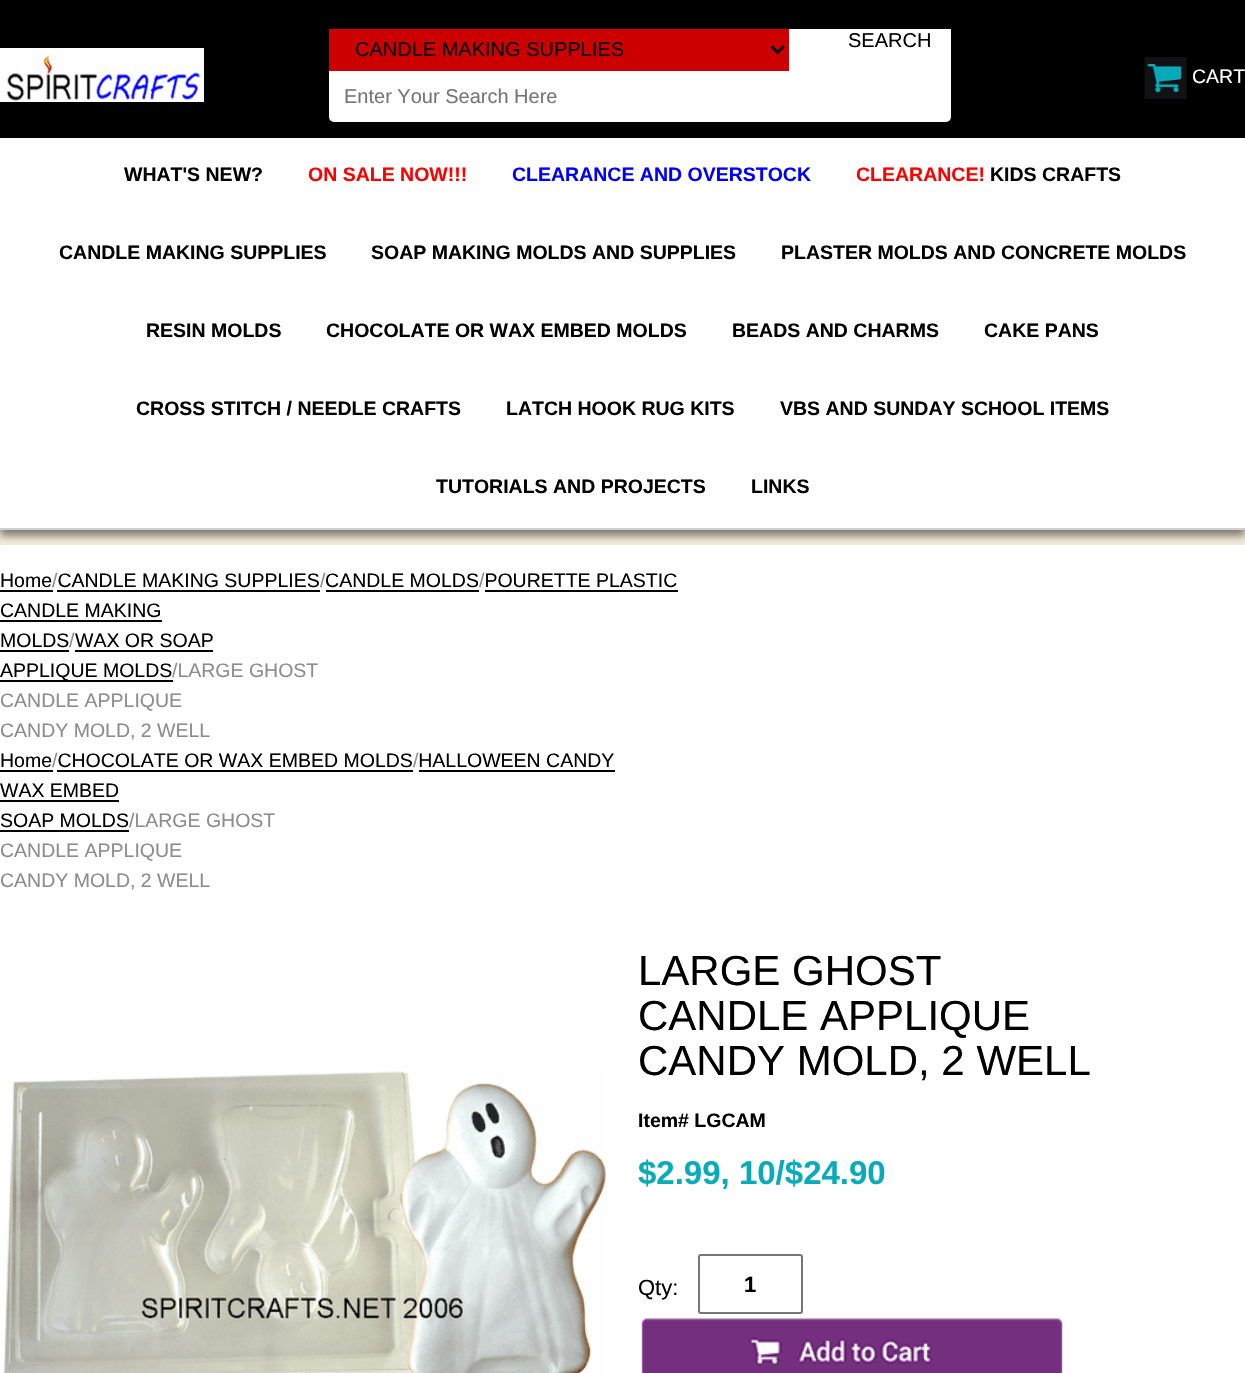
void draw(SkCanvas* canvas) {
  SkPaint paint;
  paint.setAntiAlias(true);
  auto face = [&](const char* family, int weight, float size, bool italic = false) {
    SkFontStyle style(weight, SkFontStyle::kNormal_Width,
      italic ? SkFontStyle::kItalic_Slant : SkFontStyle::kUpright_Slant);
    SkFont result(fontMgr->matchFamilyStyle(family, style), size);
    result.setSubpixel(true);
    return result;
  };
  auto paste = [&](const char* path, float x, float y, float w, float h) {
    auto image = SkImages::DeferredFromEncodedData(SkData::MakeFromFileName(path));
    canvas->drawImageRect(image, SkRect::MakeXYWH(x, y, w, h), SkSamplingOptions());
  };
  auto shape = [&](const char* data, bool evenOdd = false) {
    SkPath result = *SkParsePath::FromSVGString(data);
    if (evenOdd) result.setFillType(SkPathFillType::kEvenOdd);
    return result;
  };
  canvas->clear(0xfff3ecda);
  paint.setColor(0xff000000);
  canvas->drawRect(SkRect::MakeXYWH(0, 0, 1245, 138), paint);
  paste("img/1.png", 0, 48, 204, 54);
  paint.setColor(0xffffffff);
  canvas->drawRoundRect(SkRect::MakeXYWH(329, 29, 622, 93), 5, 5, paint);
  canvas->drawRect(SkRect::MakeXYWH(946, 29, 5, 5), paint);
  paint.setColor(0xffcc0000);
  canvas->drawRect(SkRect::MakeXYWH(329, 29, 460, 42), paint);
  paint.setStroke(true);
  paint.setStrokeWidth(3);
  paint.setColor(0xff000000);
  canvas->drawPath(shape("M771.5 46.5L777.5 52.5L783.5 46.5"), paint);
  paste("img/2.png", 1144, 57, 43, 42);
  paint.setStroke(false);
  paint.setColor(0x7a000000);
  paint.setMaskFilter(SkMaskFilter::MakeBlur(kNormal_SkBlurStyle, 4));
  canvas->drawRect(SkRect::MakeXYWH(0, 144, 1245, 392), paint);
  paint.setMaskFilter(nullptr);
  {
    const struct { float x, y, w, h; SkColor color; } items[] = {
      {0, 138, 1245, 390, 0xffffffff},
      {0, 528, 1245, 2, 0xffd0d0d0},
      {0, 545, 1245, 828, 0xffffffff},
      {0, 590, 53, 2, 0xff000000},
      {57, 590, 263, 2, 0xff000000},
      {326, 590, 153, 2, 0xff000000},
      {485, 590, 193, 2, 0xff000000},
      {0, 620, 162, 2, 0xff000000},
      {0, 650, 69, 2, 0xff000000},
      {75, 650, 138, 2, 0xff000000},
      {0, 680, 173, 2, 0xff000000},
      {0, 770, 53, 2, 0xff000000},
      {57, 770, 356, 2, 0xff000000},
      {419, 770, 196, 2, 0xff000000},
      {0, 800, 119, 2, 0xff000000},
      {0, 830, 129, 2, 0xff000000},
    };
    for (auto [x, y, w, h, color] : items) {
      paint.setColor(color);
      canvas->drawRect(SkRect::MakeXYWH(x, y, w, h), paint);
    }
  }
  paste("img/3.png", 3, 1071, 603, 302);
  paint.setStroke(true);
  paint.setStrokeWidth(2);
  paint.setColor(0xff767676);
  canvas->drawRoundRect(SkRect::MakeXYWH(699, 1255, 103, 58), 2, 2, paint);
  paste("img/4.png", 641, 1318, 422, 55);
  auto f0 = face("Liberation Sans", 400, 20);
  paint.setStroke(false);
  paint.setColor(0xff000000);
  canvas->drawString("SEARCH", 848, 47, f0, paint);
  canvas->drawString("CANDLE MAKING SUPPLIES", 355, 56, f0, paint);
  paint.setColor(0xff757575);
  canvas->drawString("Enter Your Search Here", 344, 103, f0, paint);
  auto f1 = face("Liberation Sans", 400, 19.5f);
  paint.setColor(0xffffffff);
  canvas->drawString("CART", 1192, 83, f1, paint);
  auto f2 = face("Liberation Sans", 700, 19.5f);
  paint.setColor(0xff000000);
  canvas->drawString("WHAT'S NEW?", 124, 181, f2, paint);
  paint.setColor(0xffff0000);
  canvas->drawString("ON SALE NOW!!!", 308, 181, f2, paint);
  paint.setColor(0xff0000ff);
  canvas->drawString("CLEARANCE AND OVERSTOCK", 512, 181, f2, paint);
  paint.setColor(0xffff0000);
  canvas->drawString("CLEARANCE!", 856, 181, f2, paint);
  paint.setColor(0xff000000);
  {
    const struct { const char* s; float x, y; } items[] = {
      {"KIDS CRAFTS", 990, 181},
      {"CANDLE MAKING SUPPLIES", 59, 259},
      {"SOAP MAKING MOLDS AND SUPPLIES", 371, 259},
      {"PLASTER MOLDS AND CONCRETE MOLDS", 781, 259},
      {"RESIN MOLDS", 146, 337},
      {"CHOCOLATE OR WAX EMBED MOLDS", 326, 337},
      {"BEADS AND CHARMS", 732, 337},
      {"CAKE PANS", 984, 337},
      {"CROSS STITCH / NEEDLE CRAFTS", 136, 415},
      {"LATCH HOOK RUG KITS", 506, 415},
      {"VBS AND SUNDAY SCHOOL ITEMS", 780, 415},
      {"TUTORIALS AND PROJECTS", 436, 493},
      {"LINKS", 751, 493},
    };
    for (auto [s, x, y] : items) {
      canvas->drawString(s, x, y, f2, paint);
    }
  }
  canvas->drawString("Home CANDLE MAKING SUPPLIES CANDLE MOLDS POURETTE PLASTIC", 0, 587, f1, paint);
  paint.setColor(0xff8c8c8c);
  {
    const struct { const char* s; float x, y; } items[] = {
      {"/", 479, 587},
      {"/", 320, 587},
      {"/", 52, 587},
    };
    for (auto [s, x, y] : items) {
      canvas->drawString(s, x, y, f1, paint);
    }
  }
  paint.setColor(0xff000000);
  canvas->drawString("CANDLE MAKING", 0, 617, f1, paint);
  canvas->drawString("MOLDS", 0, 647, f1, paint);
  paint.setColor(0xff8c8c8c);
  canvas->drawString("/", 69, 647, f1, paint);
  paint.setColor(0xff000000);
  canvas->drawString("WAX OR SOAP", 75, 647, f1, paint);
  canvas->drawString("APPLIQUE MOLDS", 0, 677, f1, paint);
  paint.setColor(0xff8c8c8c);
  {
    const struct { const char* s; float x, y; } items[] = {
      {"/LARGE GHOST", 172, 677},
      {"CANDLE APPLIQUE", 0, 707},
      {"CANDY MOLD, 2 WELL", 0, 737},
    };
    for (auto [s, x, y] : items) {
      canvas->drawString(s, x, y, f1, paint);
    }
  }
  paint.setColor(0xff000000);
  canvas->drawString("Home CHOCOLATE OR WAX EMBED MOLDS HALLOWEEN CANDY", 0, 767, f1, paint);
  paint.setColor(0xff8c8c8c);
  canvas->drawString("/", 413, 767, f1, paint);
  canvas->drawString("/", 52, 767, f1, paint);
  paint.setColor(0xff000000);
  canvas->drawString("WAX EMBED", 0, 797, f1, paint);
  canvas->drawString("SOAP MOLDS", 0, 827, f1, paint);
  paint.setColor(0xff8c8c8c);
  {
    const struct { const char* s; float x, y; } items[] = {
      {"/LARGE GHOST", 129, 827},
      {"CANDLE APPLIQUE", 0, 857},
      {"CANDY MOLD, 2 WELL", 0, 887},
    };
    for (auto [s, x, y] : items) {
      canvas->drawString(s, x, y, f1, paint);
    }
  }
  auto f3 = face("Liberation Sans", 400, 42);
  paint.setColor(0xff000000);
  {
    const struct { const char* s; float x, y; } items[] = {
      {"LARGE GHOST", 638, 985},
      {"CANDLE APPLIQUE", 638, 1030},
      {"CANDY MOLD, 2 WELL", 638, 1075},
    };
    for (auto [s, x, y] : items) {
      canvas->drawString(s, x, y, f3, paint);
    }
  }
  canvas->drawString("Item# LGCAM", 638, 1127, f2, paint);
  auto f4 = face("Liberation Sans", 700, 33);
  paint.setColor(0xff08abba);
  canvas->drawString("$2.99, 10/$24.90", 638, 1184, f4, paint);
  auto f5 = face("Liberation Sans", 400, 22);
  paint.setColor(0xff000000);
  canvas->drawString("Qty:", 638, 1295, f5, paint);
  auto f6 = face("Liberation Sans", 700, 22);
  canvas->drawString("1", 744, 1292, f6, paint);
}
